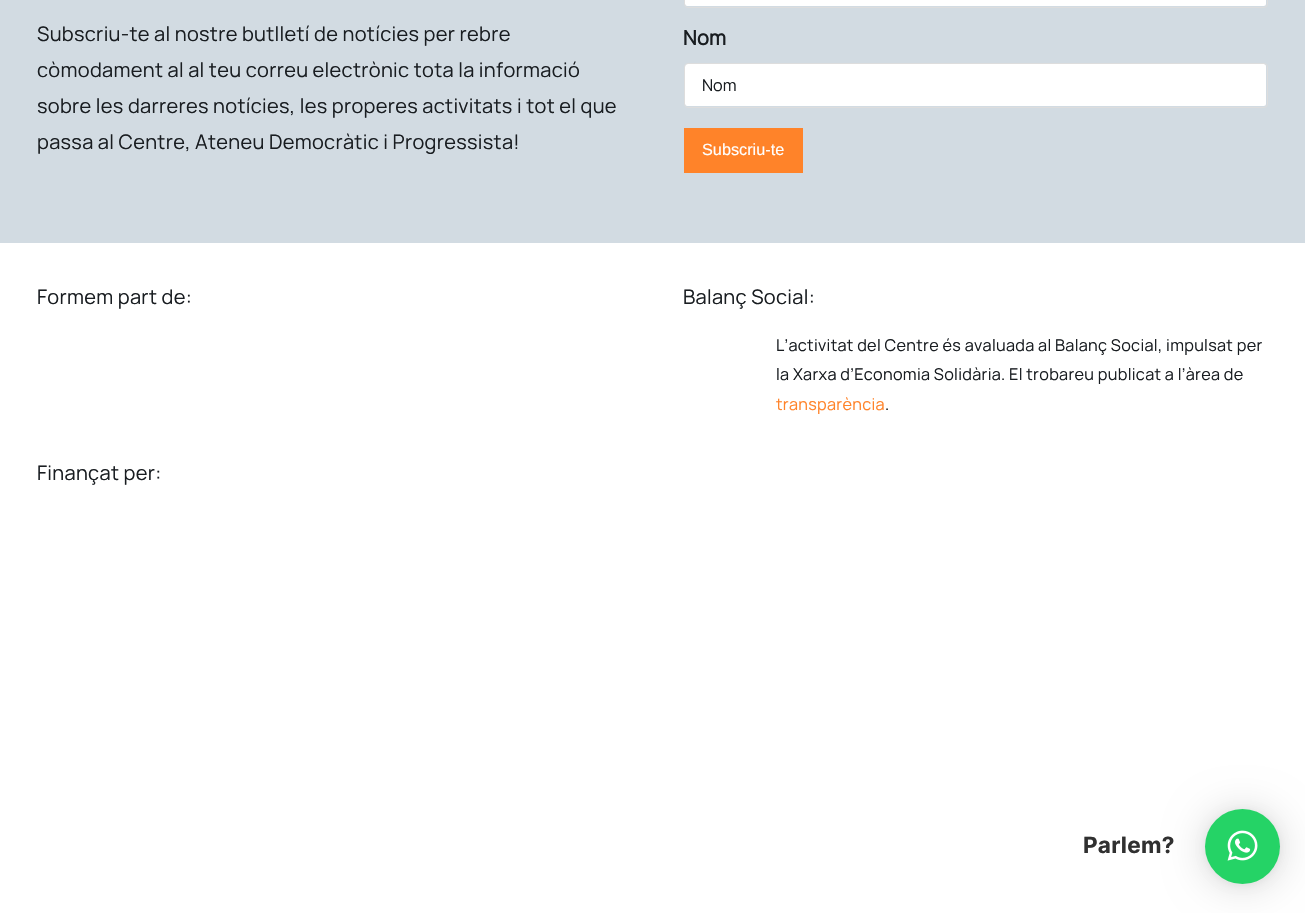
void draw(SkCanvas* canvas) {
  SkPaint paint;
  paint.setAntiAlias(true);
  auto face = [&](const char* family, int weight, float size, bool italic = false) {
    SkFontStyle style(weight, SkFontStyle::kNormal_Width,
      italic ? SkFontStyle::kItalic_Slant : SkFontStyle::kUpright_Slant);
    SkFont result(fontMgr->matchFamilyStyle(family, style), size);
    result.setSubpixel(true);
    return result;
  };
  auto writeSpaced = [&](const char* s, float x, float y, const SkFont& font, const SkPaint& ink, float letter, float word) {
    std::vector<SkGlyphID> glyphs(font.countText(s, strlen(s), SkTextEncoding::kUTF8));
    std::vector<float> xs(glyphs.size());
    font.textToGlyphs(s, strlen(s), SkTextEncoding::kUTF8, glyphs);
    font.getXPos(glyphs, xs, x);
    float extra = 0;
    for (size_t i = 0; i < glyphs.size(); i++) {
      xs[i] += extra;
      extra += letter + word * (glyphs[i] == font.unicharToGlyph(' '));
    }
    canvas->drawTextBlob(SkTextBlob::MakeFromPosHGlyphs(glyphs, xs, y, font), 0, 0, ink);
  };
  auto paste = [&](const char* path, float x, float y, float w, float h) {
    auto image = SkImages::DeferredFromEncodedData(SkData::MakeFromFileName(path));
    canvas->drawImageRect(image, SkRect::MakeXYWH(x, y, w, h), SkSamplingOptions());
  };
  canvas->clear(0xffffffff);
  paint.setColor(0xffd2dbe2);
  canvas->drawRect(SkRect::MakeXYWH(0, 0, 1305, 243), paint);
  paint.setColor(0xffffffff);
  canvas->drawRoundRect(SkRect::MakeXYWH(685, -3, 581, 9), 2.5f, 2.5f, paint);
  paint.setStroke(true);
  paint.setStrokeWidth(1);
  paint.setColor(0xffdddddd);
  canvas->drawRoundRect(SkRect::MakeXYWH(684.5f, -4.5f, 583, 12), 3.5f, 3.5f, paint);
  paint.setStroke(false);
  paint.setColor(0xffffffff);
  canvas->drawRoundRect(SkRect::MakeXYWH(685, 64, 581, 42), 2.5f, 2.5f, paint);
  paint.setStroke(true);
  paint.setColor(0xffdddddd);
  canvas->drawRoundRect(SkRect::MakeXYWH(684.5f, 63.5f, 583, 44), 3.5f, 3.5f, paint);
  paint.setStroke(false);
  paint.setColor(0xffff8329);
  canvas->drawRect(SkRect::MakeXYWH(684, 128, 119, 45), paint);
  paint.setColor(0x29000000);
  paint.setMaskFilter(SkMaskFilter::MakeBlur(kNormal_SkBlurStyle, 20));
  canvas->drawRoundRect(SkRect::MakeXYWH(1205, 811, 75, 75), 37.5f, 37.5f, paint);
  paint.setMaskFilter(nullptr);
  paint.setColor(0x0f000000);
  paint.setMaskFilter(SkMaskFilter::MakeBlur(kNormal_SkBlurStyle, 4));
  canvas->drawRoundRect(SkRect::MakeXYWH(1205, 810, 75, 75), 37.5f, 37.5f, paint);
  paint.setMaskFilter(nullptr);
  paint.setColor(0xff25d366);
  canvas->drawCircle(1242.5f, 846.5f, 37.5f, paint);
  paste("img/1.png", 1227, 830, 31, 31);
  auto f0 = face("Manrope", 200, 20);
  paint.setColor(0xff191d21);
  {
    const struct { const char* s; float x, y; } items[] = {
      {"Subscriu-te al nostre butlletí de notícies per rebre", 37, 41},
      {"còmodament al al teu correu electrònic tota la informació", 37, 77},
      {"sobre les darreres notícies, les properes activitats i tot el que", 37, 113},
      {"passa al Centre, Ateneu Democràtic i Progressista!", 37, 149},
    };
    for (auto [s, x, y] : items) {
      writeSpaced(s, x, y, f0, paint, 0.3f, 0);
    }
  }
  auto f1 = face("Manrope", 700, 20);
  writeSpaced("Nom", 683, 45, f1, paint, 0.3f, 0);
  auto f2 = face("Manrope", 200, 16.25f);
  canvas->drawString("Nom", 702, 91, f2, paint);
  auto f3 = face("Liberation Sans", 400, 16.25f);
  paint.setColor(0xffffffff);
  canvas->drawString("Subscriu-te", 702, 155, f3, paint);
  paint.setColor(0xff191d21);
  writeSpaced("Formem part de:", 37, 304, f0, paint, 0.3f, 0);
  writeSpaced("Balanç Social:", 683, 304, f0, paint, 0.3f, 0);
  writeSpaced("L’activitat del Centre és avaluada al Balanç Social, impulsat per", 776, 351, f2, paint, 0.3f, 0);
  writeSpaced("la Xarxa d’Economia Solidària. El trobareu publicat a l’àrea de", 776, 380, f2, paint, 0.3f, 0);
  paint.setColor(0xffff8329);
  writeSpaced("transparència", 776, 410, f2, paint, 0.3f, 0);
  paint.setColor(0xff191d21);
  writeSpaced(".", 885, 410, f2, paint, 0.3f, 0);
  writeSpaced("Finançat per:", 37, 480, f0, paint, 0.3f, 0);
  auto f4 = face("Inter", 700, 22.5f);
  paint.setColor(0xff303030);
  writeSpaced("Parlem?", 1083, 853, f4, paint, 0.3f, 0);
}
